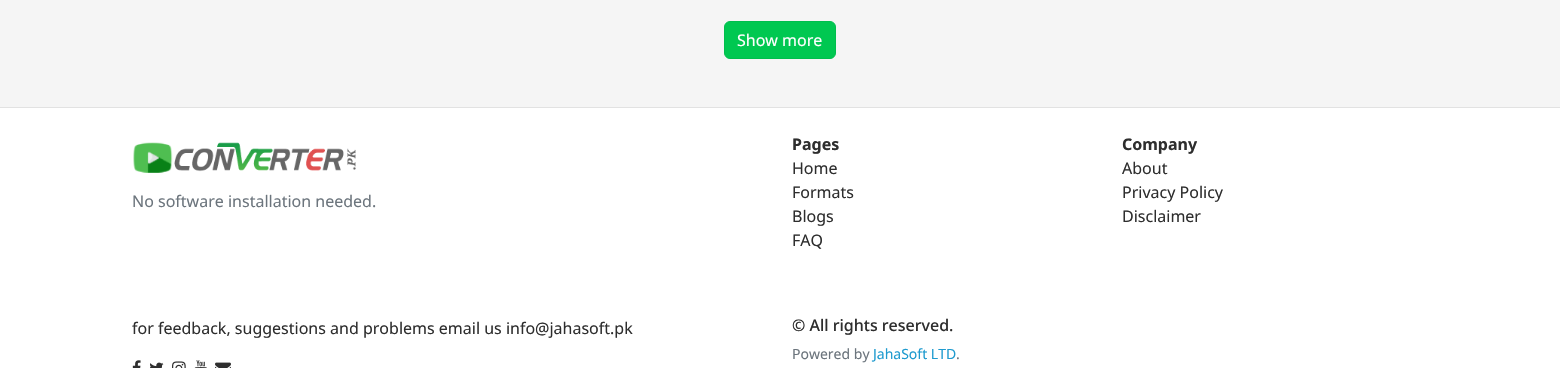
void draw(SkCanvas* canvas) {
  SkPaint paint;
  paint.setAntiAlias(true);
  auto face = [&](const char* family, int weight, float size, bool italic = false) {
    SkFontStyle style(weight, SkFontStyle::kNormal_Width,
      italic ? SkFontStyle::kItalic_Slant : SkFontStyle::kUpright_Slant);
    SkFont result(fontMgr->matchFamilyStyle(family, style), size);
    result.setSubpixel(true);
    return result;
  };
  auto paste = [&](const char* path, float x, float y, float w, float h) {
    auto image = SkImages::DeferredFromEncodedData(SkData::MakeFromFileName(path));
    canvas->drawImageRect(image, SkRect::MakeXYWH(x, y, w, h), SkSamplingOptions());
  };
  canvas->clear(0xfff5f5f5);
  paint.setColor(0xff00c851);
  canvas->drawRoundRect(SkRect::MakeXYWH(724.5f, 21.5f, 111, 37), 5.5f, 5.5f, paint);
  paint.setStroke(true);
  paint.setStrokeWidth(1);
  paint.setColor(0xff00be4d);
  canvas->drawRoundRect(SkRect::MakeXYWH(724.5f, 21.5f, 111, 37), 5.5f, 5.5f, paint);
  paint.setStroke(false);
  paint.setColor(0xffffffff);
  canvas->drawRect(SkRect::MakeXYWH(0, 108, 1560, 260), paint);
  paint.setColor(0xffe2e2e2);
  canvas->drawRect(SkRect::MakeXYWH(0, 107, 1560, 1), paint);
  paste("img/1.png", 133, 142, 223, 31);
  paste("img/2.png", 132, 360, 9, 8);
  paste("img/3.png", 150, 362, 14, 6);
  paste("img/4.png", 172, 361, 14, 7);
  paste("img/5.png", 194, 360, 13, 8);
  paste("img/6.png", 215, 362, 16, 6);
  auto f0 = face("Noto Sans", 400, 16);
  paint.setColor(0xffffffff);
  canvas->drawString("Show more", 737, 46, f0, paint);
  paint.setColor(0xff6c757d);
  canvas->drawString("No software installation needed.", 132, 207, f0, paint);
  auto f1 = face("Noto Sans", 700, 16);
  paint.setColor(0xff2e2e2e);
  canvas->drawString("Pages", 792, 150, f1, paint);
  {
    const struct { const char* s; float x, y; } items[] = {
      {"Home", 792, 174},
      {"Formats", 792, 198},
      {"Blogs", 792, 222},
      {"FAQ", 792, 246},
    };
    for (auto [s, x, y] : items) {
      canvas->drawString(s, x, y, f0, paint);
    }
  }
  canvas->drawString("Company", 1122, 150, f1, paint);
  {
    const struct { const char* s; float x, y; } items[] = {
      {"About", 1122, 174},
      {"Privacy Policy", 1122, 198},
      {"Disclaimer", 1122, 222},
      {"for feedback, suggestions and problems email us info@jahasoft.pk", 132, 334},
    };
    for (auto [s, x, y] : items) {
      canvas->drawString(s, x, y, f0, paint);
    }
  }
  auto f2 = face("Noto Sans", 500, 16);
  canvas->drawString("© All rights reserved.", 792, 331, f2, paint);
  auto f3 = face("Noto Sans", 400, 14);
  paint.setColor(0xff6c757d);
  canvas->drawString("Powered by", 792, 359, f3, paint);
  paint.setColor(0xff1f9bcf);
  canvas->drawString("JahaSoft LTD", 873, 359, f3, paint);
  paint.setColor(0xff6c757d);
  canvas->drawString(".", 956, 359, f3, paint);
}
